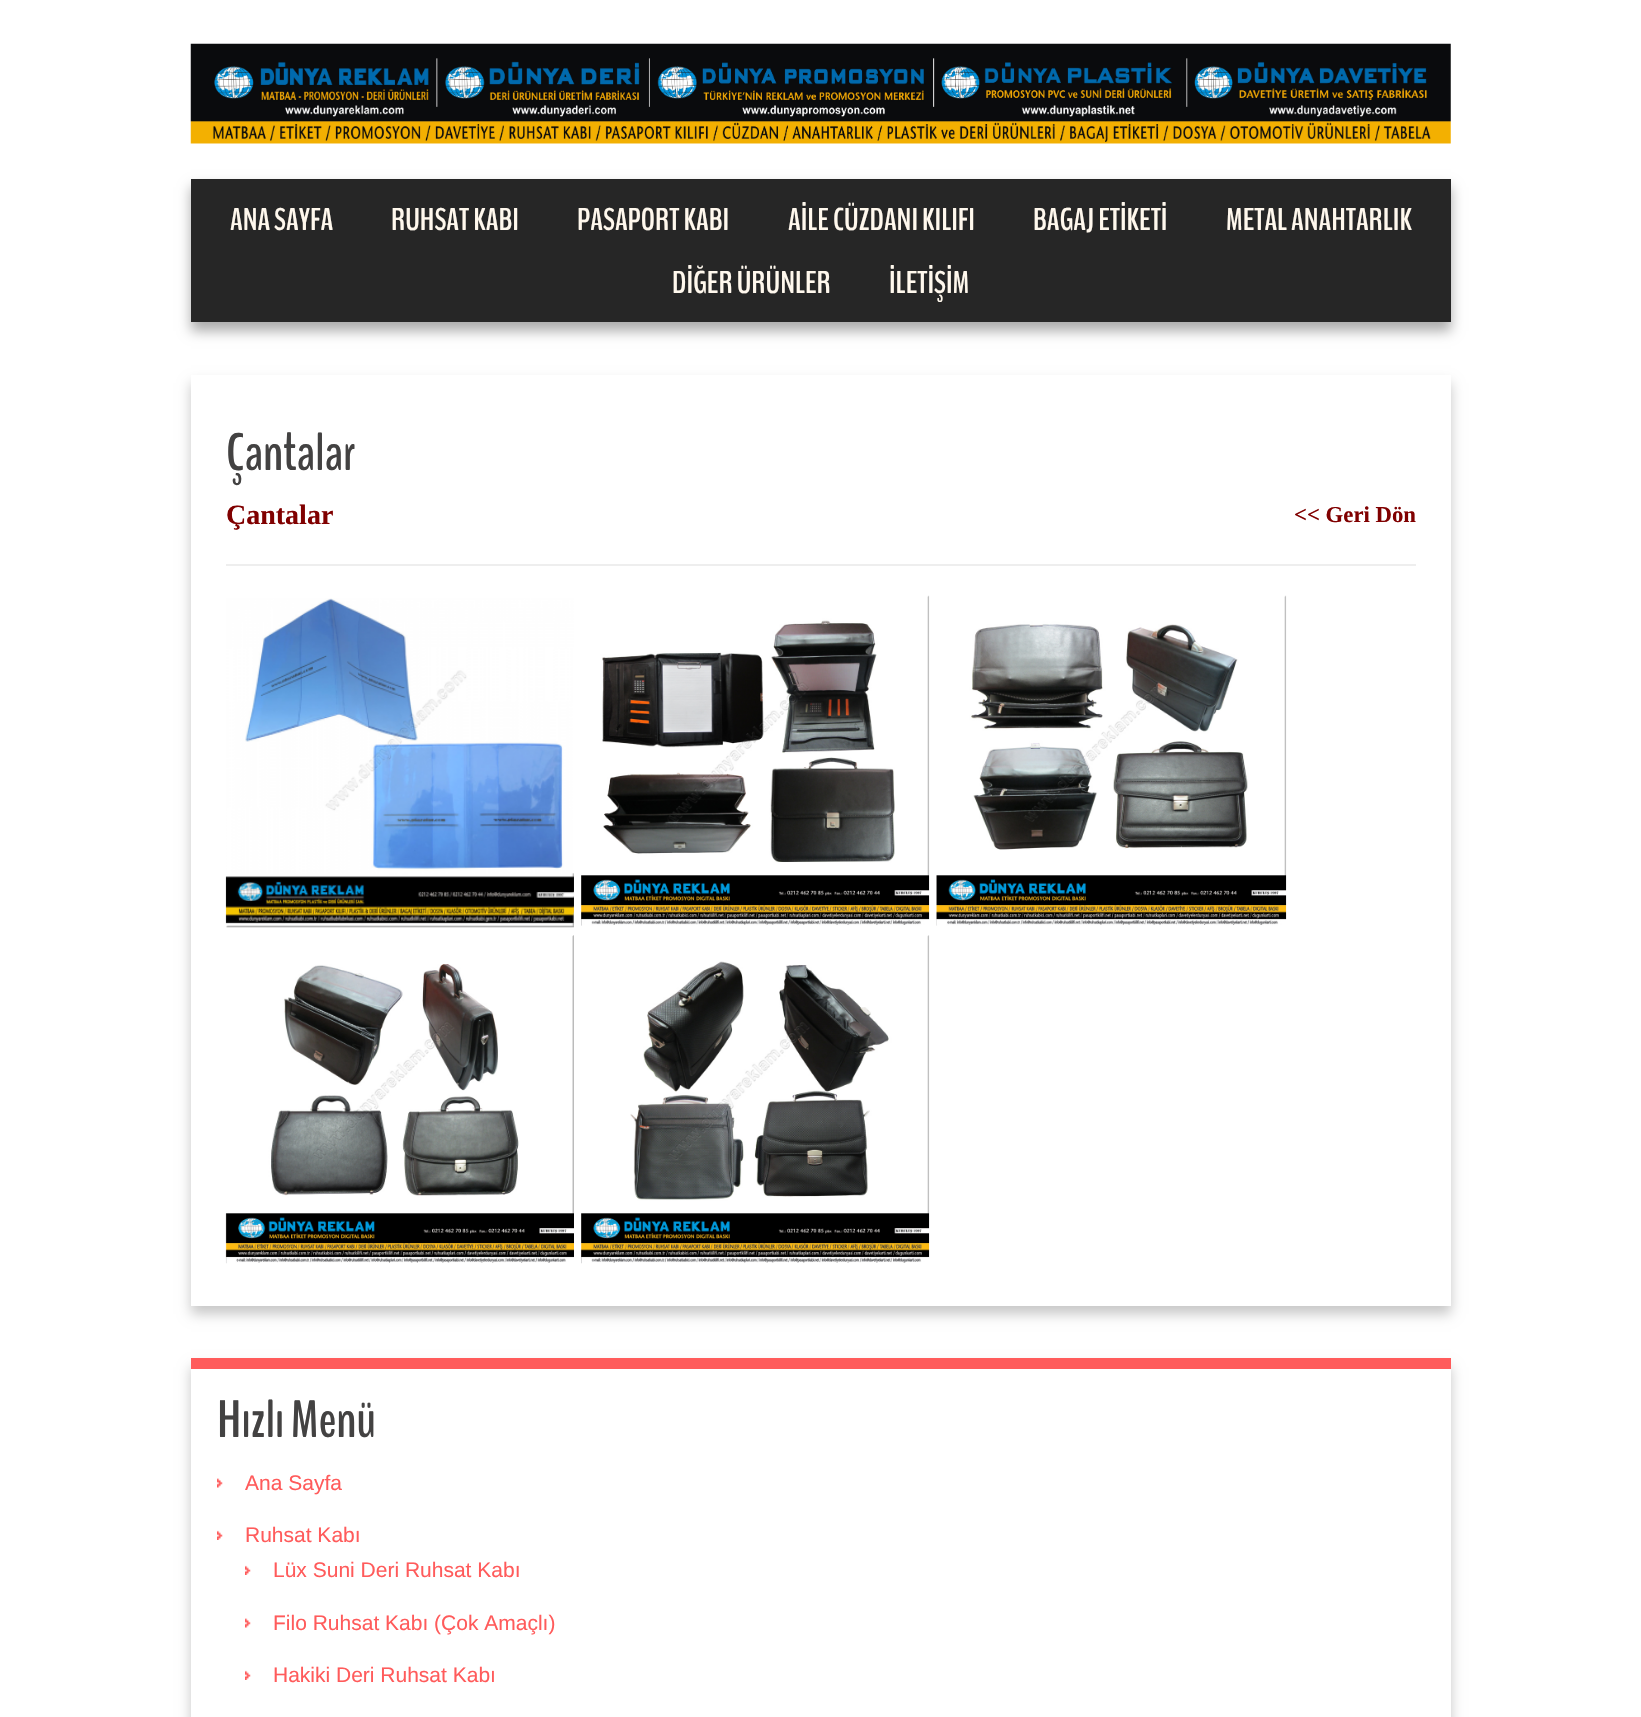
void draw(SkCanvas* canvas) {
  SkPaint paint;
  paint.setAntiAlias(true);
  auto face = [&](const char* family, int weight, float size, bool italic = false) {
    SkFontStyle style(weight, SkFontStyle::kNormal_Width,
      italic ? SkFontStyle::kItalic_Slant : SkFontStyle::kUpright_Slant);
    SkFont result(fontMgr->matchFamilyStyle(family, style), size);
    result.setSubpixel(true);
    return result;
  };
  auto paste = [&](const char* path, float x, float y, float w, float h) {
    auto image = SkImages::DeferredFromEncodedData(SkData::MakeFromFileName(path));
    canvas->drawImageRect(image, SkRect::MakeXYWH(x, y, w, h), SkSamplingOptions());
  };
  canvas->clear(0xffffffff);
  paste("img/1.png", 190, 43, 1261, 101);
  paint.setColor(0x54000000);
  paint.setMaskFilter(SkMaskFilter::MakeBlur(kNormal_SkBlurStyle, 6));
  canvas->drawRect(SkRect::MakeXYWH(191, 187, 1260, 144), paint);
  paint.setMaskFilter(nullptr);
  paint.setColor(0xff262626);
  canvas->drawRect(SkRect::MakeXYWH(191, 179, 1260, 143), paint);
  paint.setColor(0x38000000);
  paint.setMaskFilter(SkMaskFilter::MakeBlur(kNormal_SkBlurStyle, 6));
  canvas->drawRect(SkRect::MakeXYWH(191, 383, 1260, 931), paint);
  paint.setMaskFilter(nullptr);
  paint.setColor(0xffffffff);
  canvas->drawRect(SkRect::MakeXYWH(191, 375, 1260, 931), paint);
  paint.setColor(0xffeeeeee);
  canvas->drawRect(SkRect::MakeXYWH(226, 564, 1190, 2), paint);
  paste("img/2.png", 225, 598, 349, 330);
  paste("img/3.png", 581, 595, 349, 331);
  paste("img/4.png", 936, 595, 351, 331);
  paste("img/5.png", 225, 935, 349, 329);
  paste("img/6.png", 581, 935, 349, 329);
  paint.setColor(0x38000000);
  paint.setMaskFilter(SkMaskFilter::MakeBlur(kNormal_SkBlurStyle, 6));
  canvas->drawRect(SkRect::MakeXYWH(191, 1367, 1260, 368), paint);
  paint.setMaskFilter(nullptr);
  paint.setColor(0xffffffff);
  canvas->drawRect(SkRect::MakeXYWH(191, 1369, 1260, 348), paint);
  paint.setColor(0xffff5b5b);
  canvas->drawRect(SkRect::MakeXYWH(191, 1358, 1260, 11), paint);
  paste("img/7.png", 217, 1478, 6, 10);
  paste("img/8.png", 217, 1530, 6, 10);
  paste("img/9.png", 245, 1565, 6, 10);
  paste("img/10.png", 245, 1618, 6, 10);
  paste("img/9.png", 245, 1670, 6, 10);
  auto f0 = face("BenchNine", 700, 31.5f);
  paint.setColor(0xfffff8ed);
  {
    const struct { const char* s; float x, y; } items[] = {
      {"ANA SAYFA", 230, 230},
      {"RUHSAT KABI", 391, 230},
      {"PASAPORT KABI", 577, 230},
      {"AİLE CÜZDANI KILIFI", 788, 230},
      {"BAGAJ ETİKETİ", 1033, 230},
      {"METAL ANAHTARLIK", 1226, 230},
      {"DİĞER ÜRÜNLER", 672, 293},
      {"İLETİŞİM", 889, 293},
    };
    for (auto [s, x, y] : items) {
      canvas->drawString(s, x, y, f0, paint);
    }
  }
  auto f1 = face("BenchNine", 700, 52.5f);
  paint.setColor(0xff434242);
  canvas->drawString("Çantalar", 226, 470, f1, paint);
  auto f2 = face("Liberation Serif", 700, 28);
  paint.setColor(0xff800000);
  canvas->drawString("Çantalar", 226, 524, f2, paint);
  auto f3 = face("Liberation Serif", 700, 22.75f);
  canvas->drawString("<< Geri Dön", 1294, 522, f3, paint);
  paint.setColor(0xff434242);
  canvas->drawString("Hızlı Menü", 217, 1437, f1, paint);
  auto f4 = face("Liberation Sans", 400, 21);
  paint.setColor(0xffff5b5b);
  {
    const struct { const char* s; float x, y; } items[] = {
      {"Ana Sayfa", 245, 1490},
      {"Ruhsat Kabı", 245, 1542},
      {"Lüx Suni Deri Ruhsat Kabı", 273, 1577},
      {"Filo Ruhsat Kabı (Çok Amaçlı)", 273, 1630},
      {"Hakiki Deri Ruhsat Kabı", 273, 1682},
    };
    for (auto [s, x, y] : items) {
      canvas->drawString(s, x, y, f4, paint);
    }
  }
}
